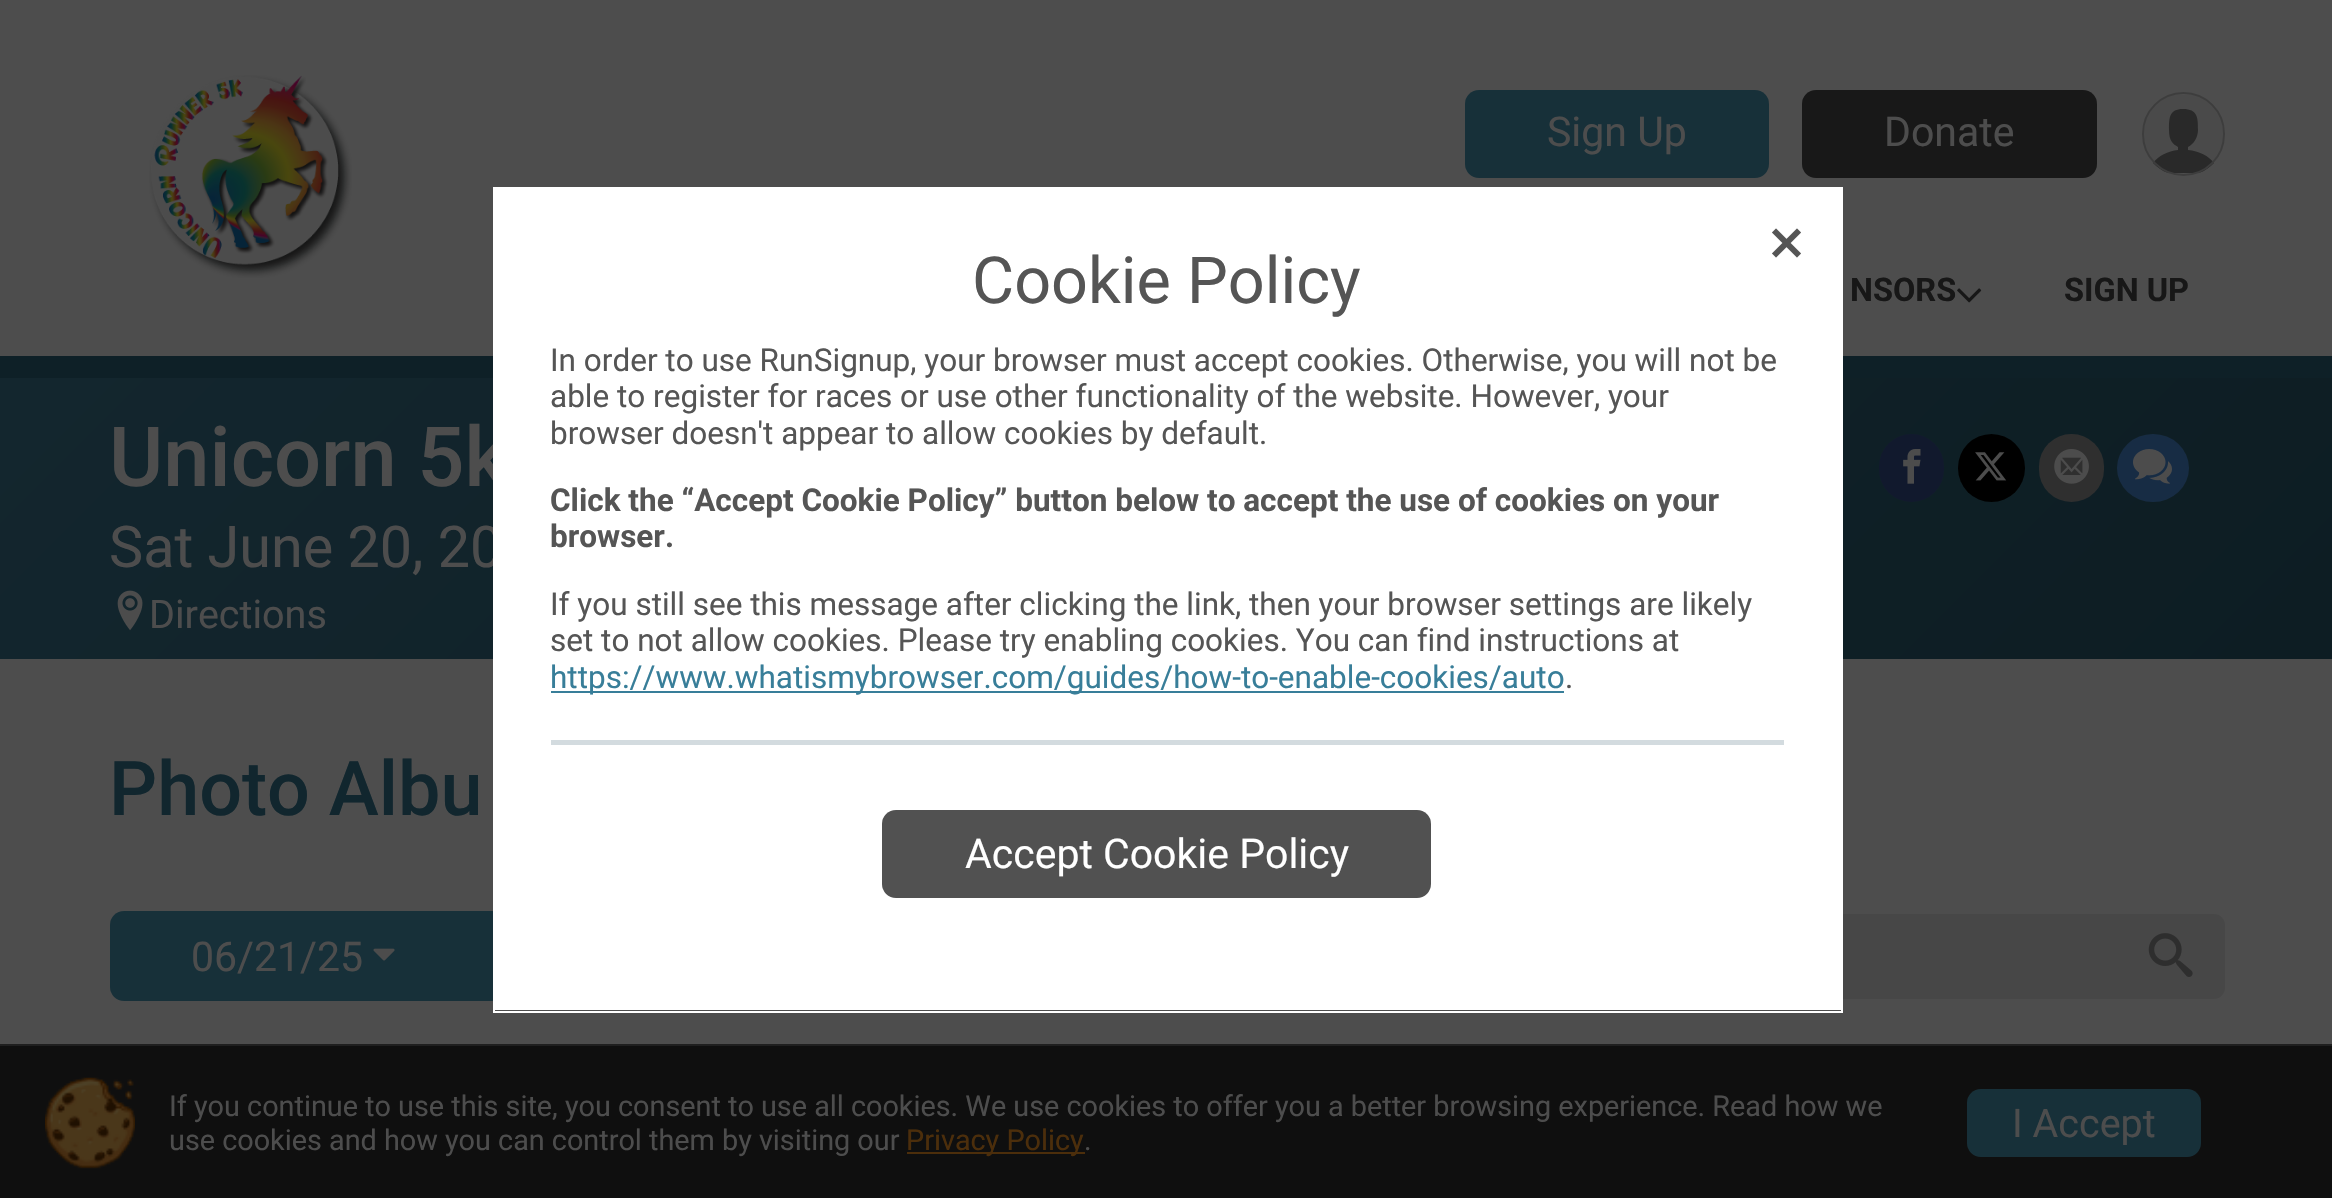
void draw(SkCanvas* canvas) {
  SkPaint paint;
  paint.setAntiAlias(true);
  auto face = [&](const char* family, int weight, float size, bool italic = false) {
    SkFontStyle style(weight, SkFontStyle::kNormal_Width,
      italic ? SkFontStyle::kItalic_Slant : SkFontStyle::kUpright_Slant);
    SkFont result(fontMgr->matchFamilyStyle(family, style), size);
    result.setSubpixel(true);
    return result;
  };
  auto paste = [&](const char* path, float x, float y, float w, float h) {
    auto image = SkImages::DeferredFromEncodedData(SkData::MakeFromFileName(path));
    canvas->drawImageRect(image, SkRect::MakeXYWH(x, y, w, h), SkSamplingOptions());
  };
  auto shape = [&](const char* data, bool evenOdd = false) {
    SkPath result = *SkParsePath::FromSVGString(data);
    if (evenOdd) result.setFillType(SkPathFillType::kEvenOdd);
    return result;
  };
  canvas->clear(0xff4d4d4d);
  paste("img/1.png", 149, 75, 203, 203);
  paint.setColor(0xff173039);
  canvas->drawRoundRect(SkRect::MakeXYWH(1465, 90, 304, 88), 14, 14, paint);
  paint.setColor(0xff181818);
  canvas->drawRoundRect(SkRect::MakeXYWH(1802, 90, 295, 88), 14, 14, paint);
  canvas->save();
  canvas->clipPath(shape("M2183.5 92C2206.5 92 2225 110.5 2225 133.5V134.5C2225 157.5 2206.5 176 2183.5 176C2160.5 176 2142 157.5 2142 134.5V133.5C2142 110.5 2160.5 92 2183.5 92Z"), true);
  paint.setColor(0xff4a4a4a);
  canvas->drawRect(SkRect::MakeXYWH(2144, 95, 79, 78), paint);
  canvas->restore();
  paint.setColor(0xff292929);
  canvas->drawPath(shape("M2188 150C2199 151 2209 156 2214 163C2210 167 2205 171 2199 173H2168C2162 171 2157 167 2153 163C2158 156 2168 151 2178 150V147C2173 144 2169 141 2169 130C2169 118 2169 109 2183 109C2198 109 2198 118 2198 130C2198 137 2194 144 2188 147Z"), paint);
  paint.setStroke(true);
  paint.setStrokeWidth(2);
  paint.setColor(0xff3d3d3d);
  canvas->drawRoundRect(SkRect::MakeXYWH(2143, 93, 81, 82), 40.5f, 40.5f, paint);
  paste("img/2.png", 1957, 288, 25, 15);
  paint.setStroke(false);
  {
    const SkColor colors[] = {0xff0d1d23, 0xff13262e};
    const float stops[] = {0, 1};
    const SkPoint ends[] = {{1820, 1172}, {513, -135}};
    paint.setShader(SkGradientShader::MakeLinear(ends, colors, stops, 2, SkTileMode::kClamp));
    paint.setAlpha(255);
  }
  canvas->drawRect(SkRect::MakeXYWH(0, 378, 2332, 281), paint);
  paint.setShader(nullptr);
  paint.setColor(0xff0e2027);
  canvas->drawRect(SkRect::MakeXYWH(0, 356, 2332, 22), paint);
  paste("img/3.png", 117, 590, 26, 41);
  paint.setColor(0xff11192d);
  canvas->drawRoundRect(SkRect::MakeXYWH(1879, 434, 65, 68), 32.5f, 32.5f, paint);
  paste("img/4.png", 1903, 449, 18, 35);
  paint.setColor(0xff000000);
  canvas->drawRoundRect(SkRect::MakeXYWH(1958, 434, 67, 68), 33.5f, 33.5f, paint);
  paste("img/5.png", 1975, 452, 32, 29);
  paint.setColor(0xff2f2f2f);
  canvas->drawRoundRect(SkRect::MakeXYWH(2039, 434, 65, 68), 32.5f, 32.5f, paint);
  paste("img/6.png", 2054, 449, 35, 35);
  paint.setColor(0xff172c44);
  canvas->drawOval(SkRect::MakeXYWH(2117, 434, 72, 68), paint);
  paste("img/7.png", 2133, 449, 39, 35);
  paint.setColor(0xff173039);
  canvas->drawRoundRect(SkRect::MakeXYWH(110, 911, 396, 90), 14, 14, paint);
  paste("img/8.png", 373, 948, 22, 13);
  paint.setColor(0xff474747);
  canvas->drawRoundRect(SkRect::MakeXYWH(551, 914, 1674, 85), 11, 11, paint);
  paste("img/9.png", 2148, 933, 45, 44);
  paint.setColor(0xff0f0f0f);
  canvas->drawRect(SkRect::MakeXYWH(0, 1046, 2332, 152), paint);
  paint.setColor(0xff1f1f1f);
  canvas->drawRect(SkRect::MakeXYWH(0, 1044, 2332, 2), paint);
  paste("img/11.png", 45, 1077, 90, 92);
  paint.setColor(0xff4c2e0b);
  canvas->drawRect(SkRect::MakeXYWH(907, 1152, 178, 2), paint);
  paint.setColor(0xff173039);
  canvas->drawRoundRect(SkRect::MakeXYWH(1967, 1089, 234, 68), 14, 14, paint);
  auto f0 = face("Roboto", 400, 41);
  paint.setColor(0xff4d4d4d);
  canvas->drawString("Sign Up", 1547, 146, f0, paint);
  canvas->drawString("Donate", 1884, 146, f0, paint);
  auto f1 = face("Roboto", 700, 32.5f);
  paint.setColor(0xff171717);
  canvas->drawString("NSORS", 1850, 301, f1, paint);
  canvas->drawString("SIGN UP", 2064, 301, f1, paint);
  auto f2 = face("Roboto", 500, 83);
  paint.setColor(0xff4d4d4d);
  canvas->drawString("Unicorn 5k", 109, 486, f2, paint);
  auto f3 = face("Roboto", 400, 57.5f);
  canvas->drawString("Sat June 20, 20", 109, 567, f3, paint);
  auto f4 = face("Roboto", 400, 39.5f);
  canvas->drawString("Directions", 149, 628, f4, paint);
  auto f5 = face("Roboto", 500, 75.5f);
  paint.setColor(0xff11262e);
  canvas->drawString("Photo Albu", 109, 815, f5, paint);
  paint.setColor(0xff4d4d4d);
  canvas->drawString("06/21/25", 191, 971, f0, paint);
  paint.setStroke(true);
  paint.setColor(0xffffffff);
  canvas->drawRect(SkRect::MakeXYWH(494, 188, 1348, 824), paint);
  paint.setStroke(false);
  canvas->drawRect(SkRect::MakeXYWH(495, 189, 1346, 821), paint);
  paste("img/10.png", 1772, 228, 29, 30);
  auto f6 = face("Roboto", 400, 64.75f);
  paint.setColor(0xff555555);
  canvas->drawString("Cookie Policy", 972, 303, f6, paint);
  auto f7 = face("Roboto", 400, 31.5f);
  {
    const struct { const char* s; float x, y; } items[] = {
      {"In order to use RunSignup, your browser must accept cookies. Otherwise, you will not be", 550, 371},
      {"able to register for races or use other functionality of the website. However, your", 550, 407},
      {"browser doesn't appear to allow cookies by default.", 550, 444},
    };
    for (auto [s, x, y] : items) {
      canvas->drawString(s, x, y, f7, paint);
    }
  }
  auto f8 = face("Roboto", 700, 31.5f);
  canvas->drawString("Click the “Accept Cookie Policy” button below to accept the use of cookies on your", 550, 511, f8, paint);
  canvas->drawString("browser.", 550, 547, f8, paint);
  canvas->drawString("If you still see this message after clicking the link, then your browser settings are likely", 550, 615, f7, paint);
  canvas->drawString("set to not allow cookies. Please try enabling cookies. You can find instructions at", 550, 651, f7, paint);
  paint.setColor(0xff387e99);
  canvas->drawRect(SkRect::MakeXYWH(551, 691, 1013, 2), paint);
  canvas->drawString("https://www.whatismybrowser.com/guides/how-to-enable-cookies/auto", 550, 688, f7, paint);
  paint.setColor(0xff555555);
  canvas->drawString(".", 1565, 688, f7, paint);
  paint.setColor(0xffd3dbdf);
  canvas->drawRect(SkRect::MakeXYWH(551, 740, 1233, 5), paint);
  paint.setColor(0xff515151);
  canvas->drawRoundRect(SkRect::MakeXYWH(882, 810, 549, 88), 14, 14, paint);
  paint.setColor(0xffffffff);
  canvas->drawString("Accept Cookie Policy", 965, 868, f0, paint);
  auto f9 = face("Roboto", 400, 28.8f);
  paint.setColor(0xff4d4d4d);
  canvas->drawString("If you continue to use this site, you consent to use all cookies. We use cookies to offer you a better browsing experience. Read how we", 169, 1116, f9, paint);
  canvas->drawString("use cookies and how you can control them by visiting our", 169, 1150, f9, paint);
  paint.setColor(0xff4c2e0b);
  canvas->drawString("Privacy Policy", 906, 1150, f9, paint);
  paint.setColor(0xff4d4d4d);
  canvas->drawString(".", 1084, 1150, f9, paint);
  canvas->drawString("I Accept", 2012, 1137, f4, paint);
}
